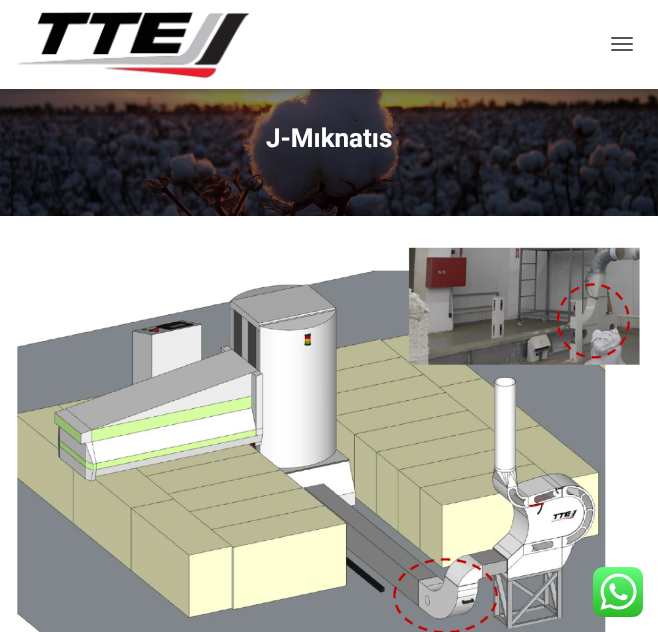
void draw(SkCanvas* canvas) {
  SkPaint paint;
  paint.setAntiAlias(true);
  auto face = [&](const char* family, int weight, float size, bool italic = false) {
    SkFontStyle style(weight, SkFontStyle::kNormal_Width,
      italic ? SkFontStyle::kItalic_Slant : SkFontStyle::kUpright_Slant);
    SkFont result(fontMgr->matchFamilyStyle(family, style), size);
    result.setSubpixel(true);
    return result;
  };
  auto paste = [&](const char* path, float x, float y, float w, float h) {
    auto image = SkImages::DeferredFromEncodedData(SkData::MakeFromFileName(path));
    canvas->drawImageRect(image, SkRect::MakeXYWH(x, y, w, h), SkSamplingOptions());
  };
  canvas->clear(0xffffffff);
  paste("img/1.png", 657, 89, 1, 127);
  paste("img/3.png", 0, 89, 658, 127);
  paint.setColor(0x80000000);
  canvas->drawRect(SkRect::MakeXYWH(0, 89, 658, 127), paint);
  paint.setColor(0x1a000000);
  paint.setMaskFilter(SkMaskFilter::MakeBlur(kNormal_SkBlurStyle, 2.5f));
  canvas->drawRect(SkRect::MakeXYWH(2, 6, 654, 85), paint);
  paint.setMaskFilter(nullptr);
  paint.setColor(0x1f000000);
  paint.setMaskFilter(SkMaskFilter::MakeBlur(kNormal_SkBlurStyle, 5));
  canvas->drawRect(SkRect::MakeXYWH(0, 1, 658, 89), paint);
  paint.setMaskFilter(nullptr);
  paint.setColor(0x6b000000);
  paint.setMaskFilter(SkMaskFilter::MakeBlur(kNormal_SkBlurStyle, 5));
  canvas->drawRect(SkRect::MakeXYWH(6, 7, 646, 77), paint);
  paint.setMaskFilter(nullptr);
  paint.setColor(0xffffffff);
  canvas->drawRect(SkRect::MakeXYWH(0, 0, 658, 89), paint);
  paste("img/2.png", 17, 12, 233, 67);
  paint.setColor(0xff555555);
  canvas->drawRoundRect(SkRect::MakeXYWH(611, 37, 22, 2), 1, 1, paint);
  canvas->drawRoundRect(SkRect::MakeXYWH(611, 43, 22, 2), 1, 1, paint);
  canvas->drawRoundRect(SkRect::MakeXYWH(611, 49, 22, 2), 1, 1, paint);
  paint.setColor(0x1f000000);
  paint.setMaskFilter(SkMaskFilter::MakeBlur(kNormal_SkBlurStyle, 15));
  canvas->drawRect(SkRect::MakeXYWH(-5, 217, 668, 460), paint);
  paint.setMaskFilter(nullptr);
  paint.setColor(0xffffffff);
  canvas->drawRect(SkRect::MakeXYWH(0, 216, 658, 416), paint);
  paste("img/4.png", 17, 247, 623, 385);
  paste("img/5.png", 593, 567, 50, 50);
  auto f0 = face("Roboto", 700, 26);
  canvas->drawString("J-Mıknatıs", 266, 147, f0, paint);
}
